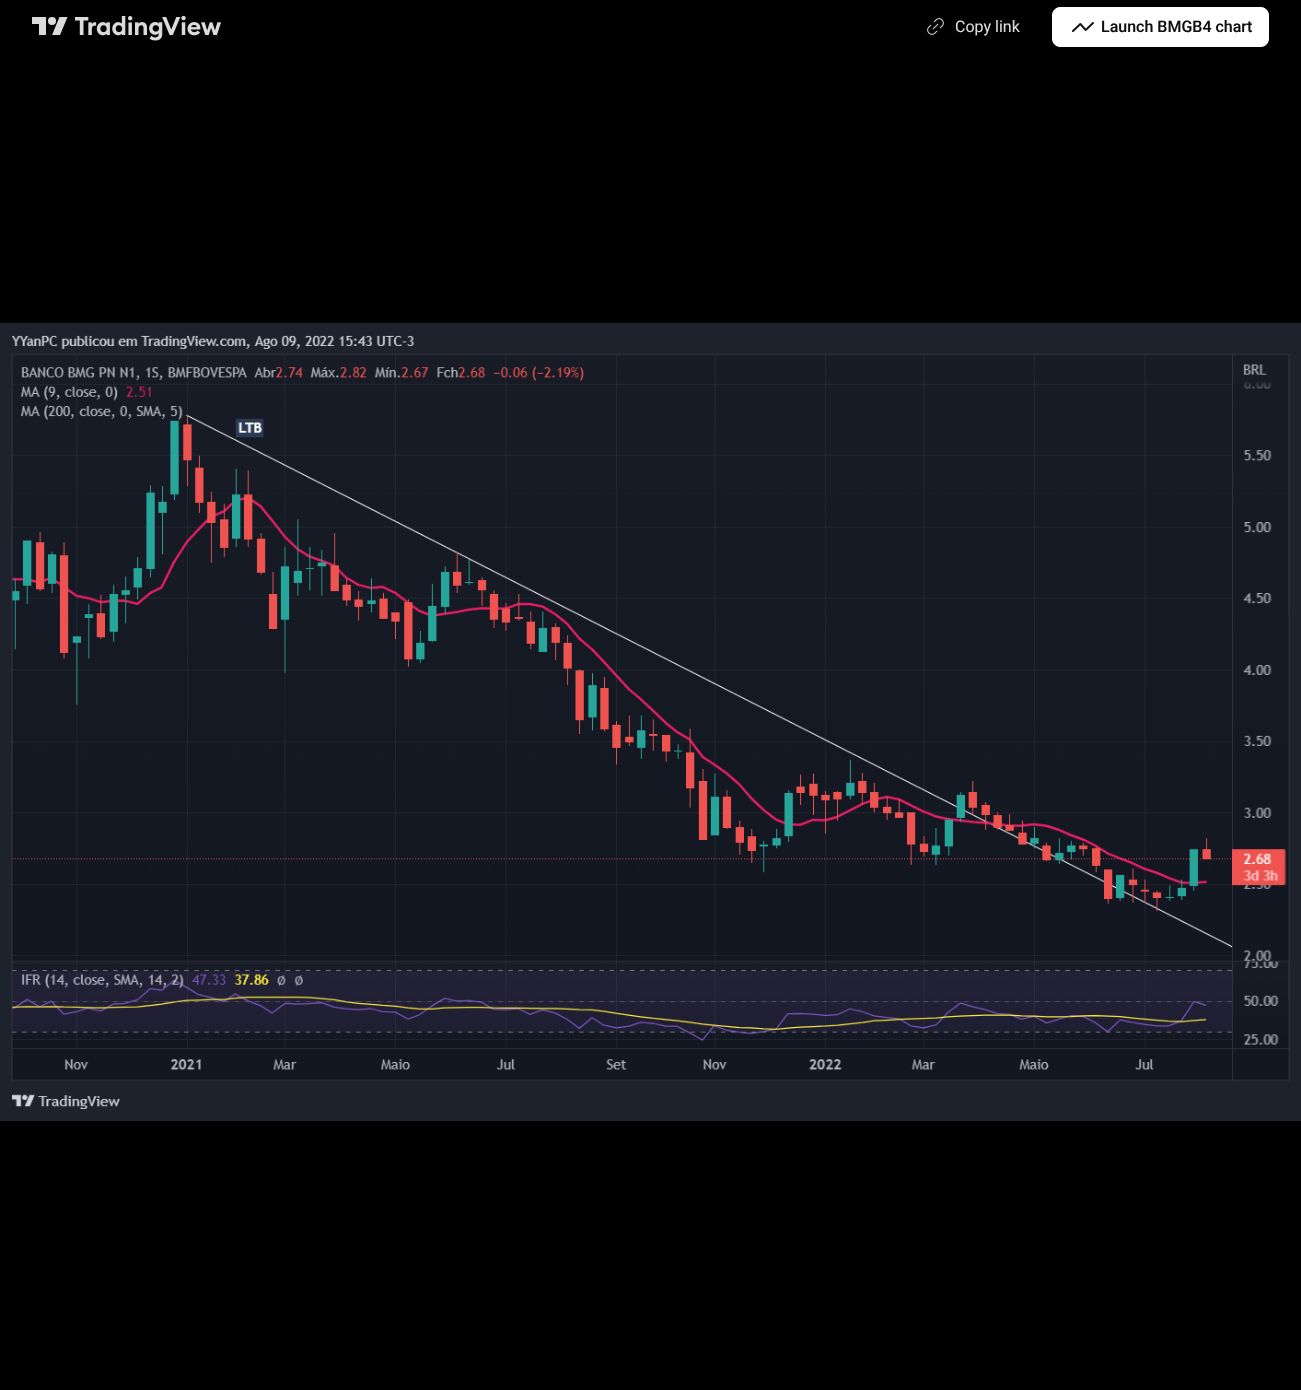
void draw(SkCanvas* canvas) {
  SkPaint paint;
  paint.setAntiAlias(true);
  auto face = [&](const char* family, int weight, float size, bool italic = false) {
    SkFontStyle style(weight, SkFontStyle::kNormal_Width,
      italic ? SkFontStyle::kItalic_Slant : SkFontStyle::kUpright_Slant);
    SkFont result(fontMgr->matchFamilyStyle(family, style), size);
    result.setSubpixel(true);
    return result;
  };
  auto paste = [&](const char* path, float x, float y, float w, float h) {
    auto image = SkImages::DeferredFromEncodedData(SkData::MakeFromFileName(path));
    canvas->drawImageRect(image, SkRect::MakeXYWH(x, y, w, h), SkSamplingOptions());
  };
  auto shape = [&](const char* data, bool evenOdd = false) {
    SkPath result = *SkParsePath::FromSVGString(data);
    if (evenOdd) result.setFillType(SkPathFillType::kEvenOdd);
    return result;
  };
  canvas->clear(0xff000000);
  paint.setColor(0xffdbdbdb);
  canvas->drawPath(shape("M46 35H39V24H32V17H46ZM60 35H52L59.5 17H67.5Z"), paint);
  canvas->drawCircle(52, 21, 4, paint);
  paste("img/1.png", 75, 15, 146, 26);
  paste("img/2.png", 927, 18, 17, 17);
  paint.setColor(0xffffffff);
  canvas->drawRoundRect(SkRect::MakeXYWH(1052.5f, 7.5f, 216, 39), 7.5f, 7.5f, paint);
  paint.setStroke(true);
  paint.setStrokeWidth(1);
  canvas->drawRoundRect(SkRect::MakeXYWH(1052.5f, 7.5f, 216, 39), 7.5f, 7.5f, paint);
  paste("img/3.png", 1072, 22, 22, 10);
  paste("img/4.png", 0, 323, 1301, 798);
  auto f0 = face("Roboto", 400, 16);
  paint.setStroke(false);
  paint.setColor(0xffdbdbdb);
  canvas->drawString("Copy link", 955, 32, f0, paint);
  auto f1 = face("Roboto", 500, 16);
  paint.setColor(0xff0f0f0f);
  canvas->drawString("Launch BMGB4 chart", 1101, 32, f1, paint);
}
